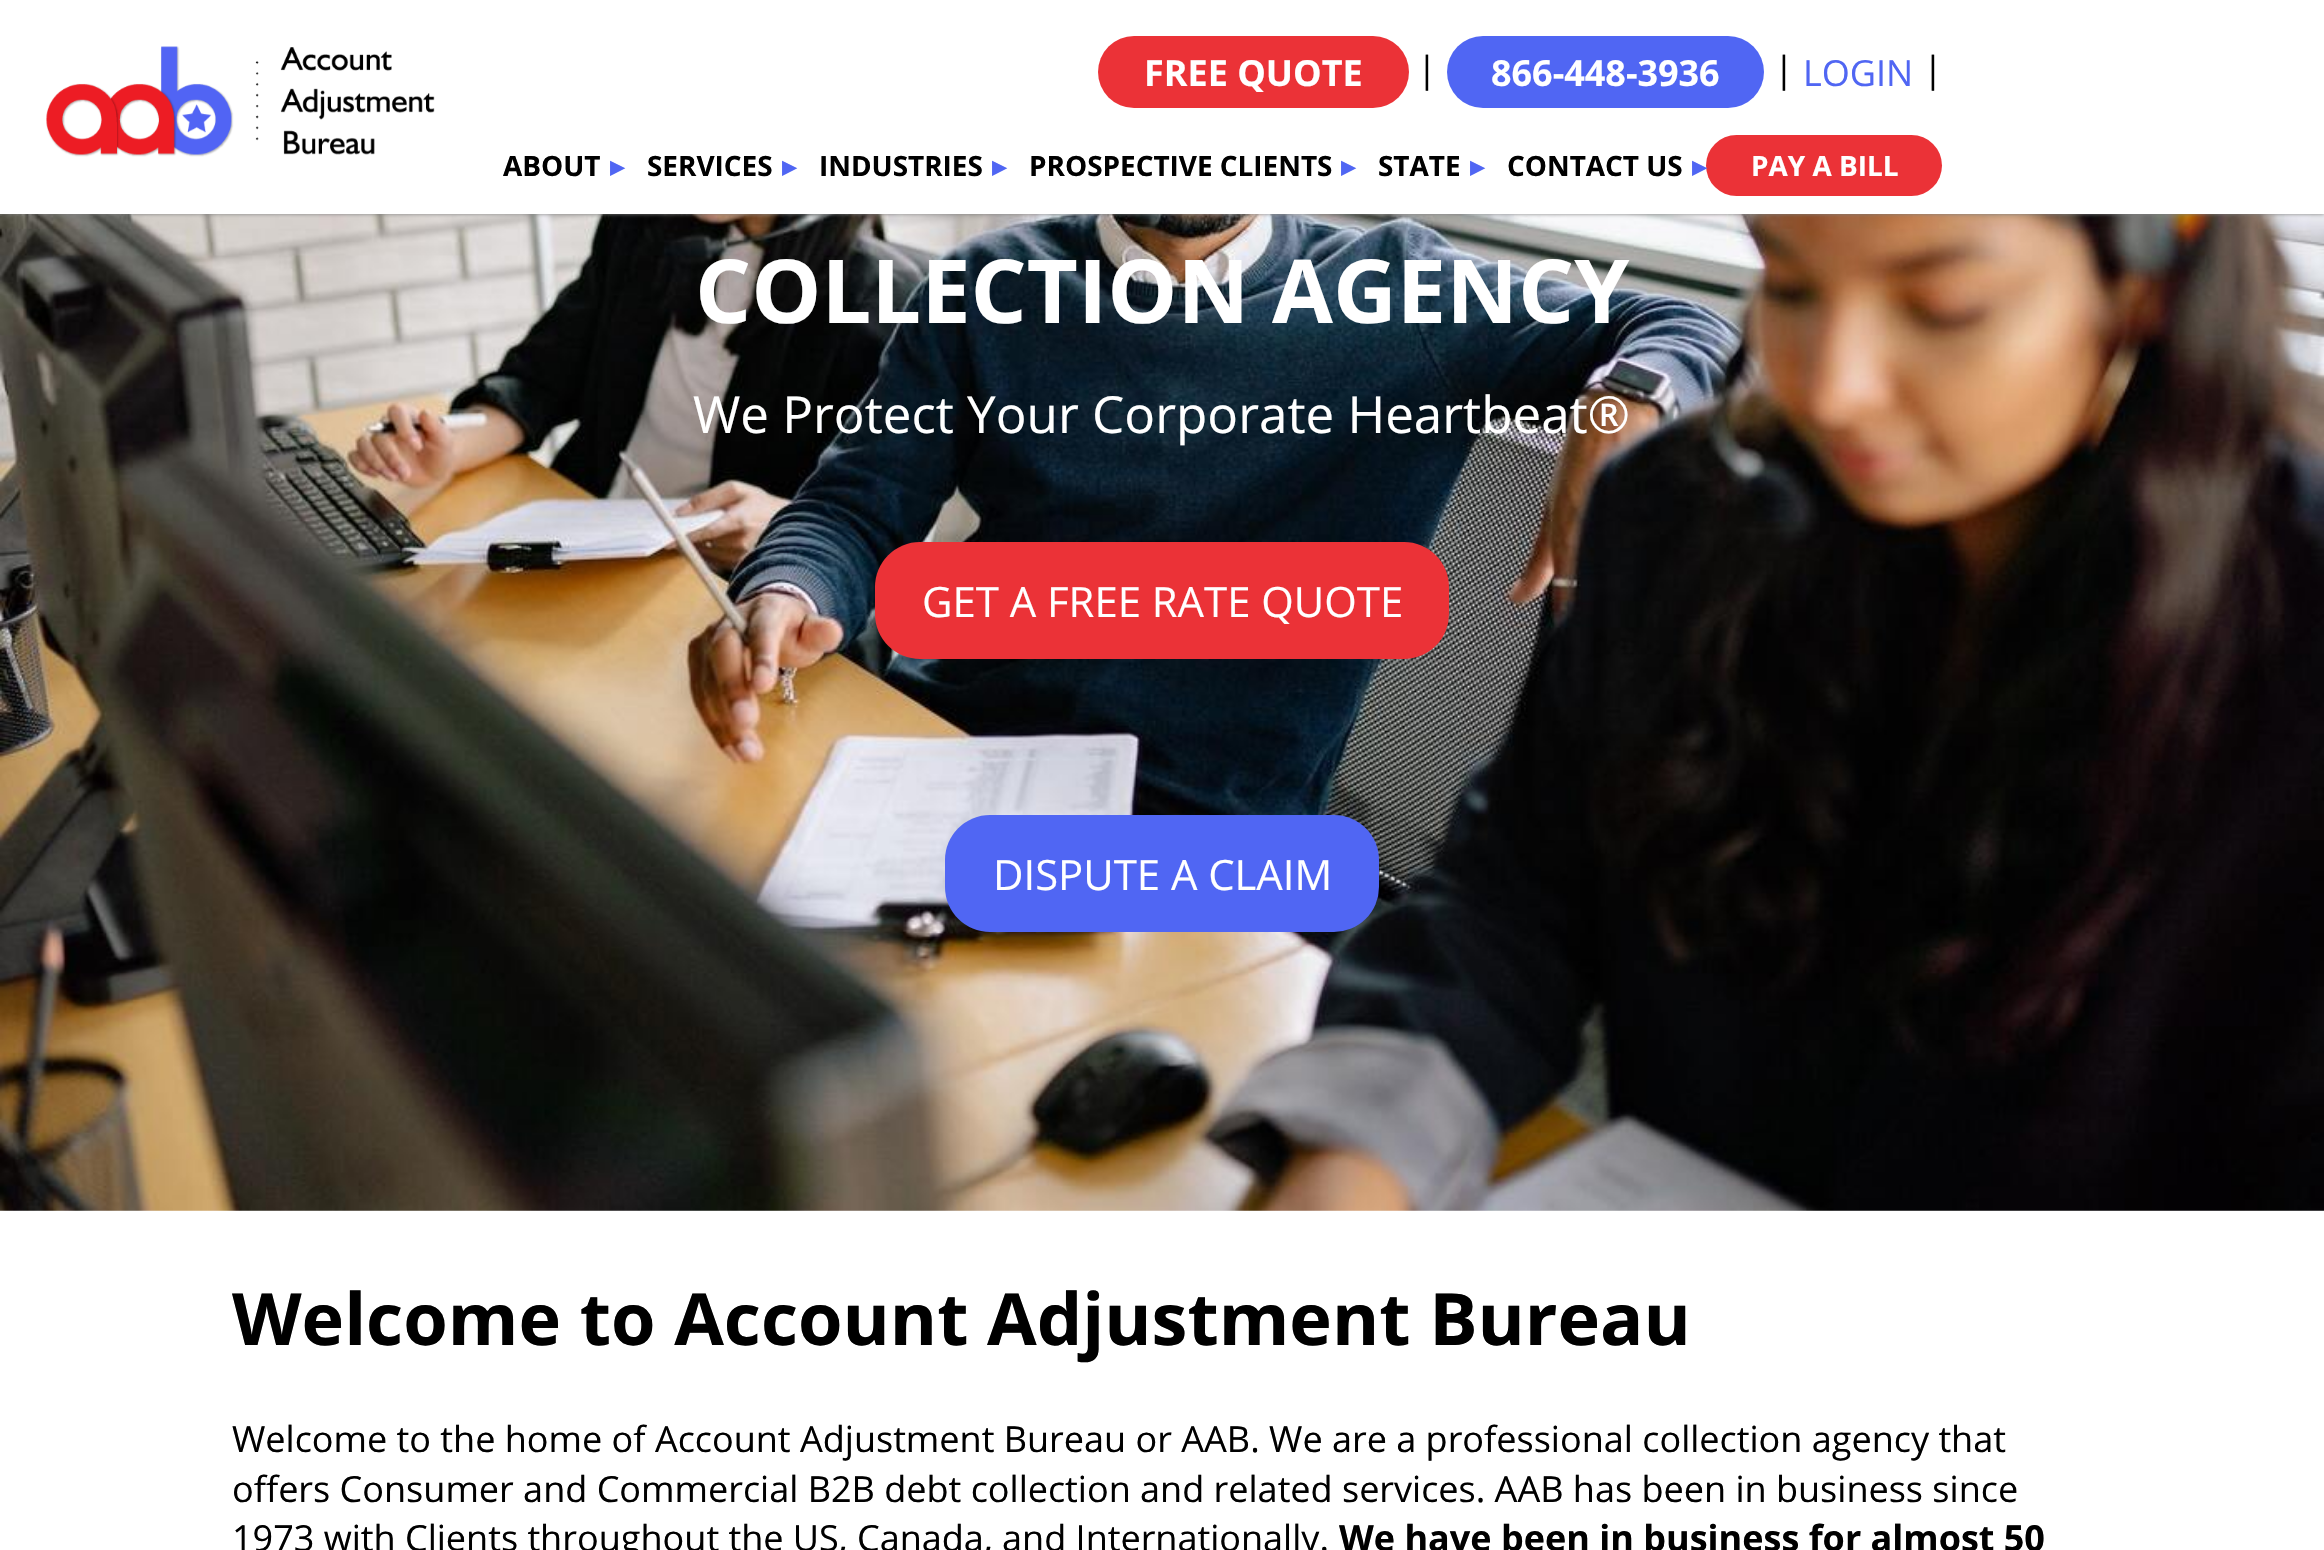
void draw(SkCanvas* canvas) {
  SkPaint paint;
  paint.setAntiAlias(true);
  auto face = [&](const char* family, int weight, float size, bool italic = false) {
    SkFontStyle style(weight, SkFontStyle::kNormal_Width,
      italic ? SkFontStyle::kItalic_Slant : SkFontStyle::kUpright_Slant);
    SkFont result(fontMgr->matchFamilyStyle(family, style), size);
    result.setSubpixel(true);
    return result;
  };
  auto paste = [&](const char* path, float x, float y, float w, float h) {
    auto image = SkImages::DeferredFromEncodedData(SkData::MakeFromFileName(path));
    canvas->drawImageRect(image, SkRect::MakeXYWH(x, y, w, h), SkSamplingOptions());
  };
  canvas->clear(0xffffffff);
  paste("img/2.png", 0, 214, 2324, 997);
  paint.setColor(0xff808080);
  paint.setMaskFilter(SkMaskFilter::MakeBlur(kNormal_SkBlurStyle, 2));
  canvas->drawRect(SkRect::MakeXYWH(0, 0, 2324, 214), paint);
  paint.setMaskFilter(nullptr);
  paint.setColor(0xffffffff);
  canvas->drawRect(SkRect::MakeXYWH(0, 0, 2324, 214), paint);
  paste("img/1.png", 46, 46, 389, 111);
  paint.setColor(0xffeb3237);
  canvas->drawRoundRect(SkRect::MakeXYWH(1098, 36, 311, 72), 36, 36, paint);
  paint.setColor(0xff5066f3);
  canvas->drawRoundRect(SkRect::MakeXYWH(1447, 36, 317, 72), 36, 36, paint);
  paint.setColor(0xffeb3237);
  canvas->drawRoundRect(SkRect::MakeXYWH(1706, 135, 236, 61), 30.5f, 30.5f, paint);
  canvas->drawRoundRect(SkRect::MakeXYWH(875, 542, 574, 117), 45, 45, paint);
  paint.setColor(0xff5066f3);
  canvas->drawRoundRect(SkRect::MakeXYWH(945, 815, 434, 117), 45, 45, paint);
  auto f0 = face("Open Sans", 700, 36);
  paint.setColor(0xffffffff);
  canvas->drawString("FREE QUOTE", 1144, 86, f0, paint);
  auto f1 = face("Open Sans", 400, 36);
  paint.setColor(0xff000000);
  canvas->drawString("|", 1417, 82, f1, paint);
  paint.setColor(0xffffffff);
  canvas->drawString("866-448-3936", 1491, 86, f0, paint);
  paint.setColor(0xff000000);
  canvas->drawString("|", 1774, 82, f1, paint);
  paint.setColor(0xff5066f3);
  canvas->drawString("LOGIN", 1803, 86, f1, paint);
  paint.setColor(0xff000000);
  canvas->drawString("|", 1923, 82, f1, paint);
  auto f2 = face("Open Sans", 700, 27.9f);
  canvas->drawString("ABOUT", 503, 176, f2, paint);
  auto f3 = face("DejaVu Sans", 700, 27.9f);
  paint.setColor(0xff5066f3);
  canvas->drawString("▸", 610, 176, f3, paint);
  paint.setColor(0xff000000);
  canvas->drawString("SERVICES", 647, 176, f2, paint);
  paint.setColor(0xff5066f3);
  canvas->drawString("▸", 782, 176, f3, paint);
  paint.setColor(0xff000000);
  canvas->drawString("INDUSTRIES", 819, 176, f2, paint);
  paint.setColor(0xff5066f3);
  canvas->drawString("▸", 992, 176, f3, paint);
  paint.setColor(0xff000000);
  canvas->drawString("PROSPECTIVE CLIENTS", 1029, 176, f2, paint);
  paint.setColor(0xff5066f3);
  canvas->drawString("▸", 1341, 176, f3, paint);
  paint.setColor(0xff000000);
  canvas->drawString("STATE", 1378, 176, f2, paint);
  paint.setColor(0xff5066f3);
  canvas->drawString("▸", 1470, 176, f3, paint);
  paint.setColor(0xff000000);
  canvas->drawString("CONTACT US", 1507, 176, f2, paint);
  paint.setColor(0xff5066f3);
  canvas->drawString("▸", 1692, 176, f3, paint);
  paint.setColor(0xffffffff);
  canvas->drawString("PAY A BILL", 1751, 176, f2, paint);
  auto f4 = face("Open Sans", 700, 88.25f);
  canvas->drawString("COLLECTION AGENCY", 695, 323, f4, paint);
  auto f5 = face("Open Sans", 400, 51.1f);
  canvas->drawString("We Protect Your Corporate Heartbeat®", 693, 433, f5, paint);
  auto f6 = face("Open Sans", 400, 41.8f);
  canvas->drawString("GET A FREE RATE QUOTE", 922, 617, f6, paint);
  canvas->drawString("DISPUTE A CLAIM", 993, 890, f6, paint);
  auto f7 = face("Open Sans", 700, 72);
  paint.setColor(0xff000000);
  canvas->drawString("Welcome to Account Adjustment Bureau", 232, 1345, f7, paint);
  {
    const struct { const char* s; float x, y; } items[] = {
      {"Welcome to the home of Account Adjustment Bureau or AAB. We are a professional collection agency that", 232, 1452},
      {"offers Consumer and Commercial B2B debt collection and related services. AAB has been in business since", 232, 1502},
      {"1973 with Clients throughout the US, Canada, and Internationally.", 232, 1551},
    };
    for (auto [s, x, y] : items) {
      canvas->drawString(s, x, y, f1, paint);
    }
  }
  canvas->drawString("We have been in business for almost 50", 1339, 1551, f0, paint);
}
